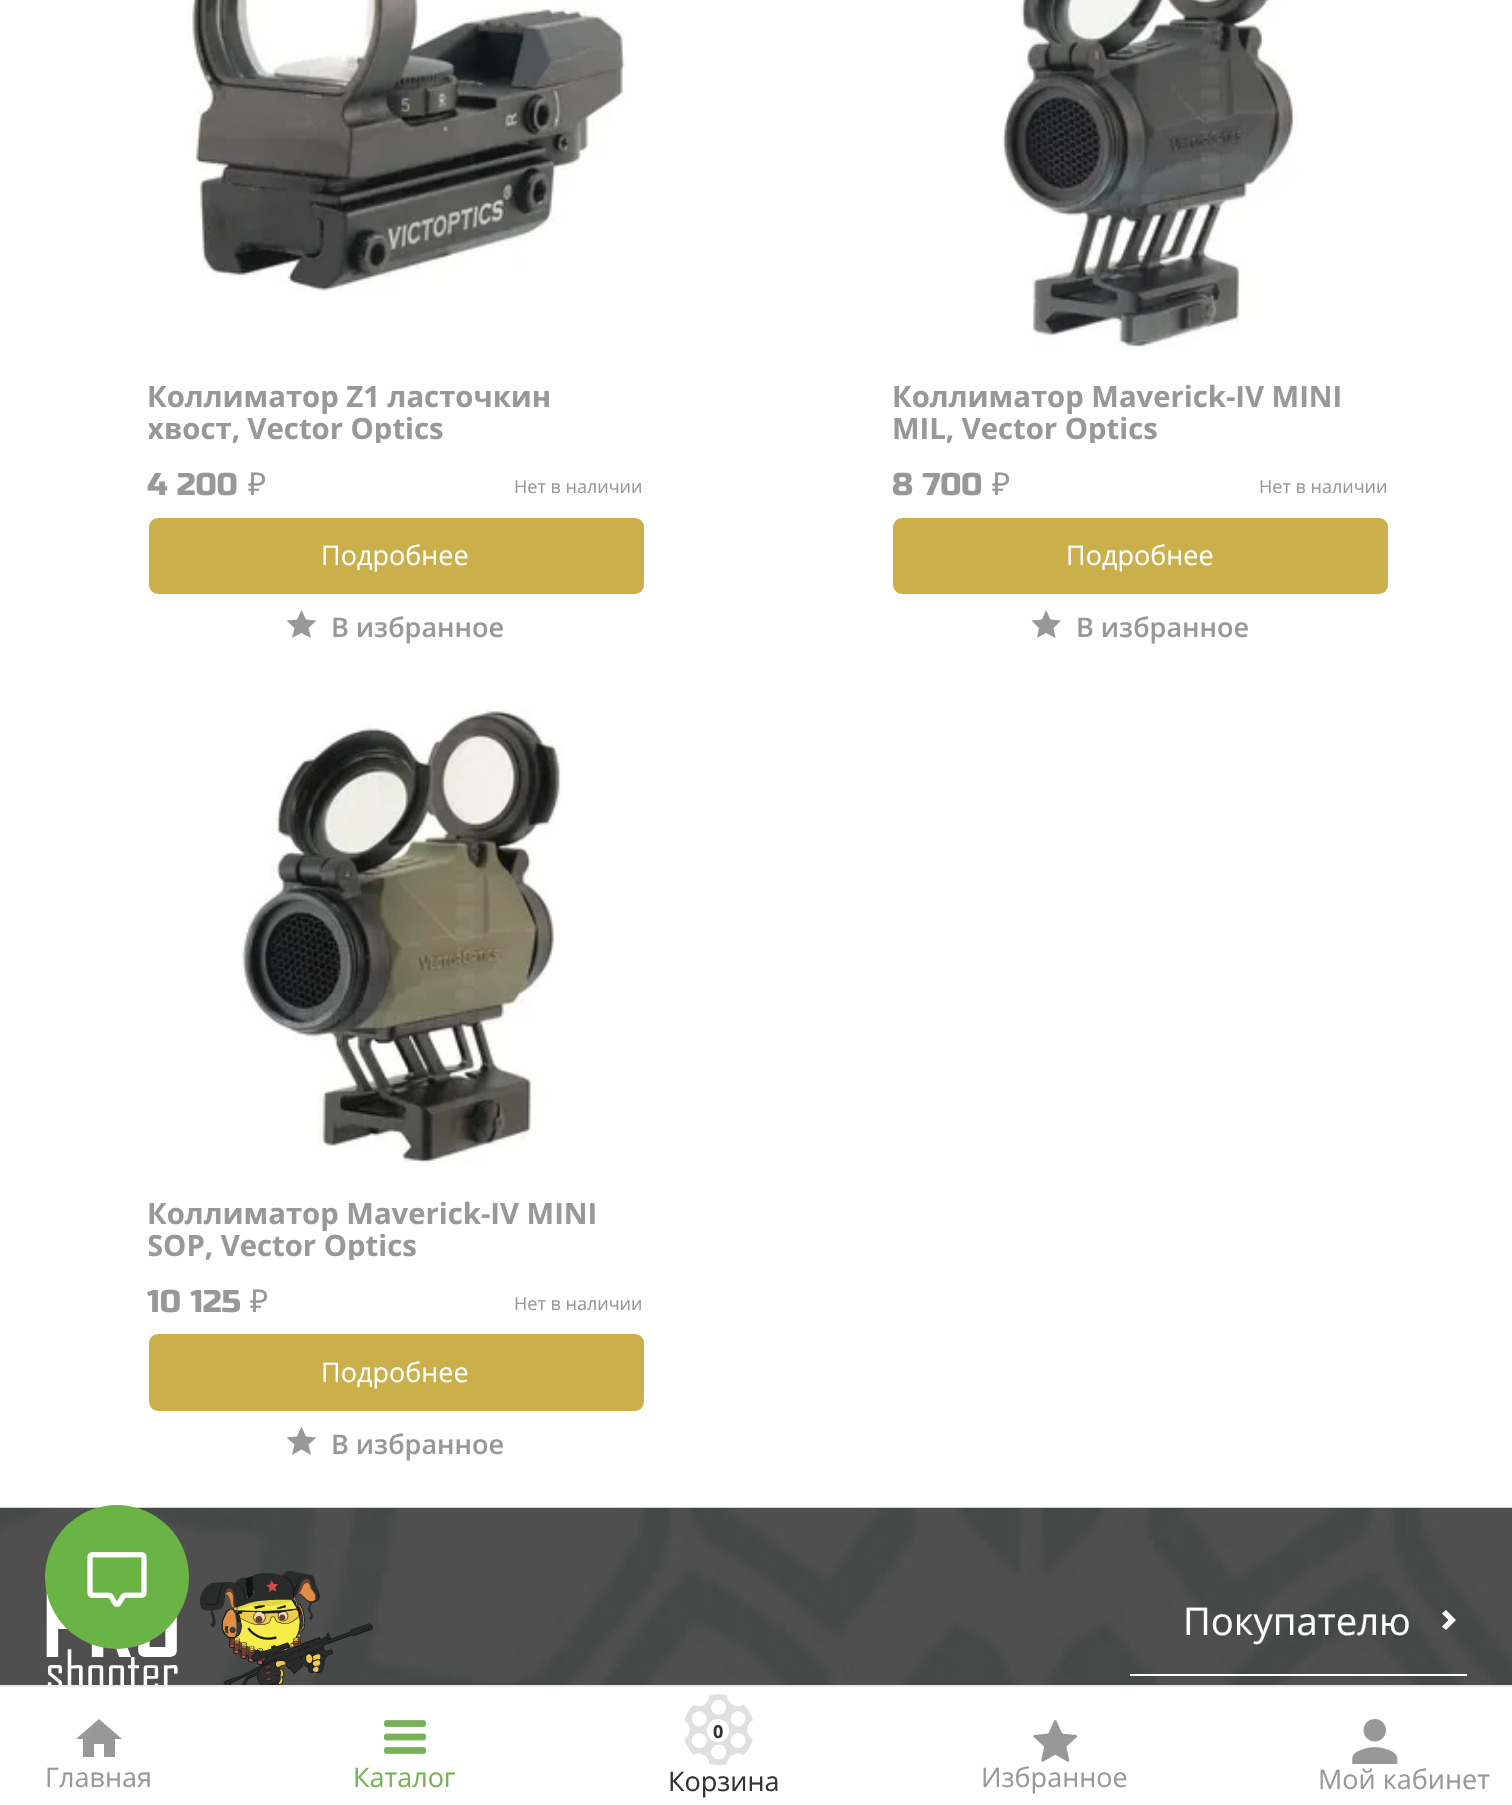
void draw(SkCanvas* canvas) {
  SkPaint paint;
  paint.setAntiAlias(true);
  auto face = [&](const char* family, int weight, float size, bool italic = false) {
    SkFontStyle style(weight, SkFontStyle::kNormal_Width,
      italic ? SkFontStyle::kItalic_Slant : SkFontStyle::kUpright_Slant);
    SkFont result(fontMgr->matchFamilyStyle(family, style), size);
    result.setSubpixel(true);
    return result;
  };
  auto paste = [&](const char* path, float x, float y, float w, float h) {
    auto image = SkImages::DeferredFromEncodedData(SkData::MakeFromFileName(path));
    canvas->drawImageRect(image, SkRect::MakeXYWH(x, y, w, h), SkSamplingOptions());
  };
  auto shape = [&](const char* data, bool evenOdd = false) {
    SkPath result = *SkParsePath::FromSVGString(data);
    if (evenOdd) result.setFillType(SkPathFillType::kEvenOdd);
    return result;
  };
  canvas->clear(0xffffffff);
  paste("img/1.png", 187, 0, 438, 292);
  paint.setColor(0xffcbaf4a);
  canvas->drawRoundRect(SkRect::MakeXYWH(149, 518, 495, 76), 9, 9, paint);
  paint.setColor(0xff989898);
  canvas->drawPath(shape("M301.5 610L306 619.5L316.5 620.5L308.5 628L311 638L301.5 633L292 638L294.5 628L286.5 620.5L297 619.5Z"), paint);
  paste("img/2.png", 1001, 0, 297, 351);
  paint.setColor(0xffcbaf4a);
  canvas->drawRoundRect(SkRect::MakeXYWH(893, 518, 495, 76), 9, 9, paint);
  paint.setColor(0xff989898);
  canvas->drawPath(shape("M1046 610L1050.5 619.5L1061 620.5L1053.5 628L1055.5 638L1046 633L1037 638L1039 628L1031.5 620.5L1042 619.5Z"), paint);
  paste("img/3.png", 241, 709, 323, 454);
  paint.setColor(0xffcbaf4a);
  canvas->drawRoundRect(SkRect::MakeXYWH(149, 1334, 495, 77), 9, 9, paint);
  paint.setColor(0xff989898);
  canvas->drawPath(shape("M301.5 1426.5L306 1436.5L316.5 1437.5L308.5 1444.5L311 1455L301.5 1449.5L292 1455L294.5 1444.5L286.5 1437.5L297 1436.5Z"), paint);
  paste("img/5.png", 0, 1507, 1512, 178);
  paste("img/6.png", 46, 1571, 327, 114);
  paint.setColor(0xff6ab446);
  canvas->drawCircle(117, 1577, 72, paint);
  paste("img/4.png", 87, 1552, 60, 55);
  paint.setColor(0xffffffff);
  canvas->drawPath(shape("M1446 1630L1442 1626.5L1448.5 1620L1442 1613.5L1446 1610L1456 1620Z"), paint);
  canvas->drawRect(SkRect::MakeXYWH(1130, 1674, 337, 2), paint);
  paint.setColor(0xffebebeb);
  canvas->drawRect(SkRect::MakeXYWH(0, 1685, 1512, 2), paint);
  paint.setColor(0xff989898);
  canvas->drawPath(shape("M94 1757V1744H104V1757H115V1739H122L99 1719L76 1739H83V1757Z"), paint);
  paste("img/7.png", 384, 1720, 42, 34);
  paste("img/8.png", 684, 1694, 69, 72);
  paint.setColor(0xffffffff);
  canvas->drawRoundRect(SkRect::MakeXYWH(707, 1719, 22, 23), 11, 11, paint);
  paste("img/9.png", 1033, 1720, 45, 42);
  paste("img/10.png", 1352, 1719, 46, 45);
  auto f0 = face("Open Sans", 700, 29.25f);
  paint.setColor(0xff989898);
  canvas->drawString("Коллиматор Z1 ласточкин", 147, 407, f0, paint);
  canvas->save();
  canvas->clipRect(SkRect::MakeXYWH(149, 380, 495, 63));
  canvas->drawString("хвост, Vector Optics", 147, 439, f0, paint);
  canvas->restore();
  auto f1 = face("Russo One", 400, 31.5f);
  canvas->drawString("4 200", 147, 495, f1, paint);
  auto f2 = face("Noto Sans", 400, 31.5f);
  canvas->drawString("₽", 248, 495, f2, paint);
  auto f3 = face("Open Sans", 400, 18);
  canvas->drawString("Нет в наличии", 514, 493, f3, paint);
  auto f4 = face("Open Sans", 400, 27);
  paint.setColor(0xffffffff);
  canvas->drawString("Подробнее", 321, 565, f4, paint);
  auto f5 = face("Open Sans", 600, 27);
  paint.setColor(0xff989898);
  canvas->drawString("В избранное", 331, 637, f5, paint);
  canvas->drawString("Коллиматор Maverick-IV MINI", 892, 407, f0, paint);
  canvas->save();
  canvas->clipRect(SkRect::MakeXYWH(893, 380, 495, 63));
  canvas->drawString("MIL, Vector Optics", 892, 439, f0, paint);
  canvas->restore();
  canvas->drawString("8 700", 892, 495, f1, paint);
  canvas->drawString("₽", 992, 495, f2, paint);
  canvas->drawString("Нет в наличии", 1259, 493, f3, paint);
  paint.setColor(0xffffffff);
  canvas->drawString("Подробнее", 1066, 565, f4, paint);
  paint.setColor(0xff989898);
  canvas->drawString("В избранное", 1076, 637, f5, paint);
  canvas->drawString("Коллиматор Maverick-IV MINI", 147, 1224, f0, paint);
  canvas->save();
  canvas->clipRect(SkRect::MakeXYWH(149, 1197, 495, 63));
  canvas->drawString("SOP, Vector Optics", 147, 1256, f0, paint);
  canvas->restore();
  canvas->drawString("10 125", 147, 1312, f1, paint);
  canvas->drawString("₽", 250, 1312, f2, paint);
  canvas->drawString("Нет в наличии", 514, 1310, f3, paint);
  paint.setColor(0xffffffff);
  canvas->drawString("Подробнее", 321, 1382, f4, paint);
  paint.setColor(0xff989898);
  canvas->drawString("В избранное", 331, 1454, f5, paint);
  auto f6 = face("Open Sans", 400, 38.25f);
  paint.setColor(0xffffffff);
  canvas->drawString("Покупателю", 1183, 1635, f6, paint);
  paint.setColor(0xff989898);
  canvas->drawString("Главная", 45, 1787, f4, paint);
  paint.setColor(0xff77b159);
  canvas->drawString("Каталог", 353, 1787, f4, paint);
  auto f7 = face("Open Sans", 700, 18);
  paint.setColor(0xff333333);
  canvas->drawString("0", 713, 1738, f7, paint);
  canvas->drawString("Корзина", 668, 1791, f4, paint);
  paint.setColor(0xff989898);
  canvas->drawString("Избранное", 981, 1787, f4, paint);
  canvas->drawString("Мой кабинет", 1318, 1789, f4, paint);
}
